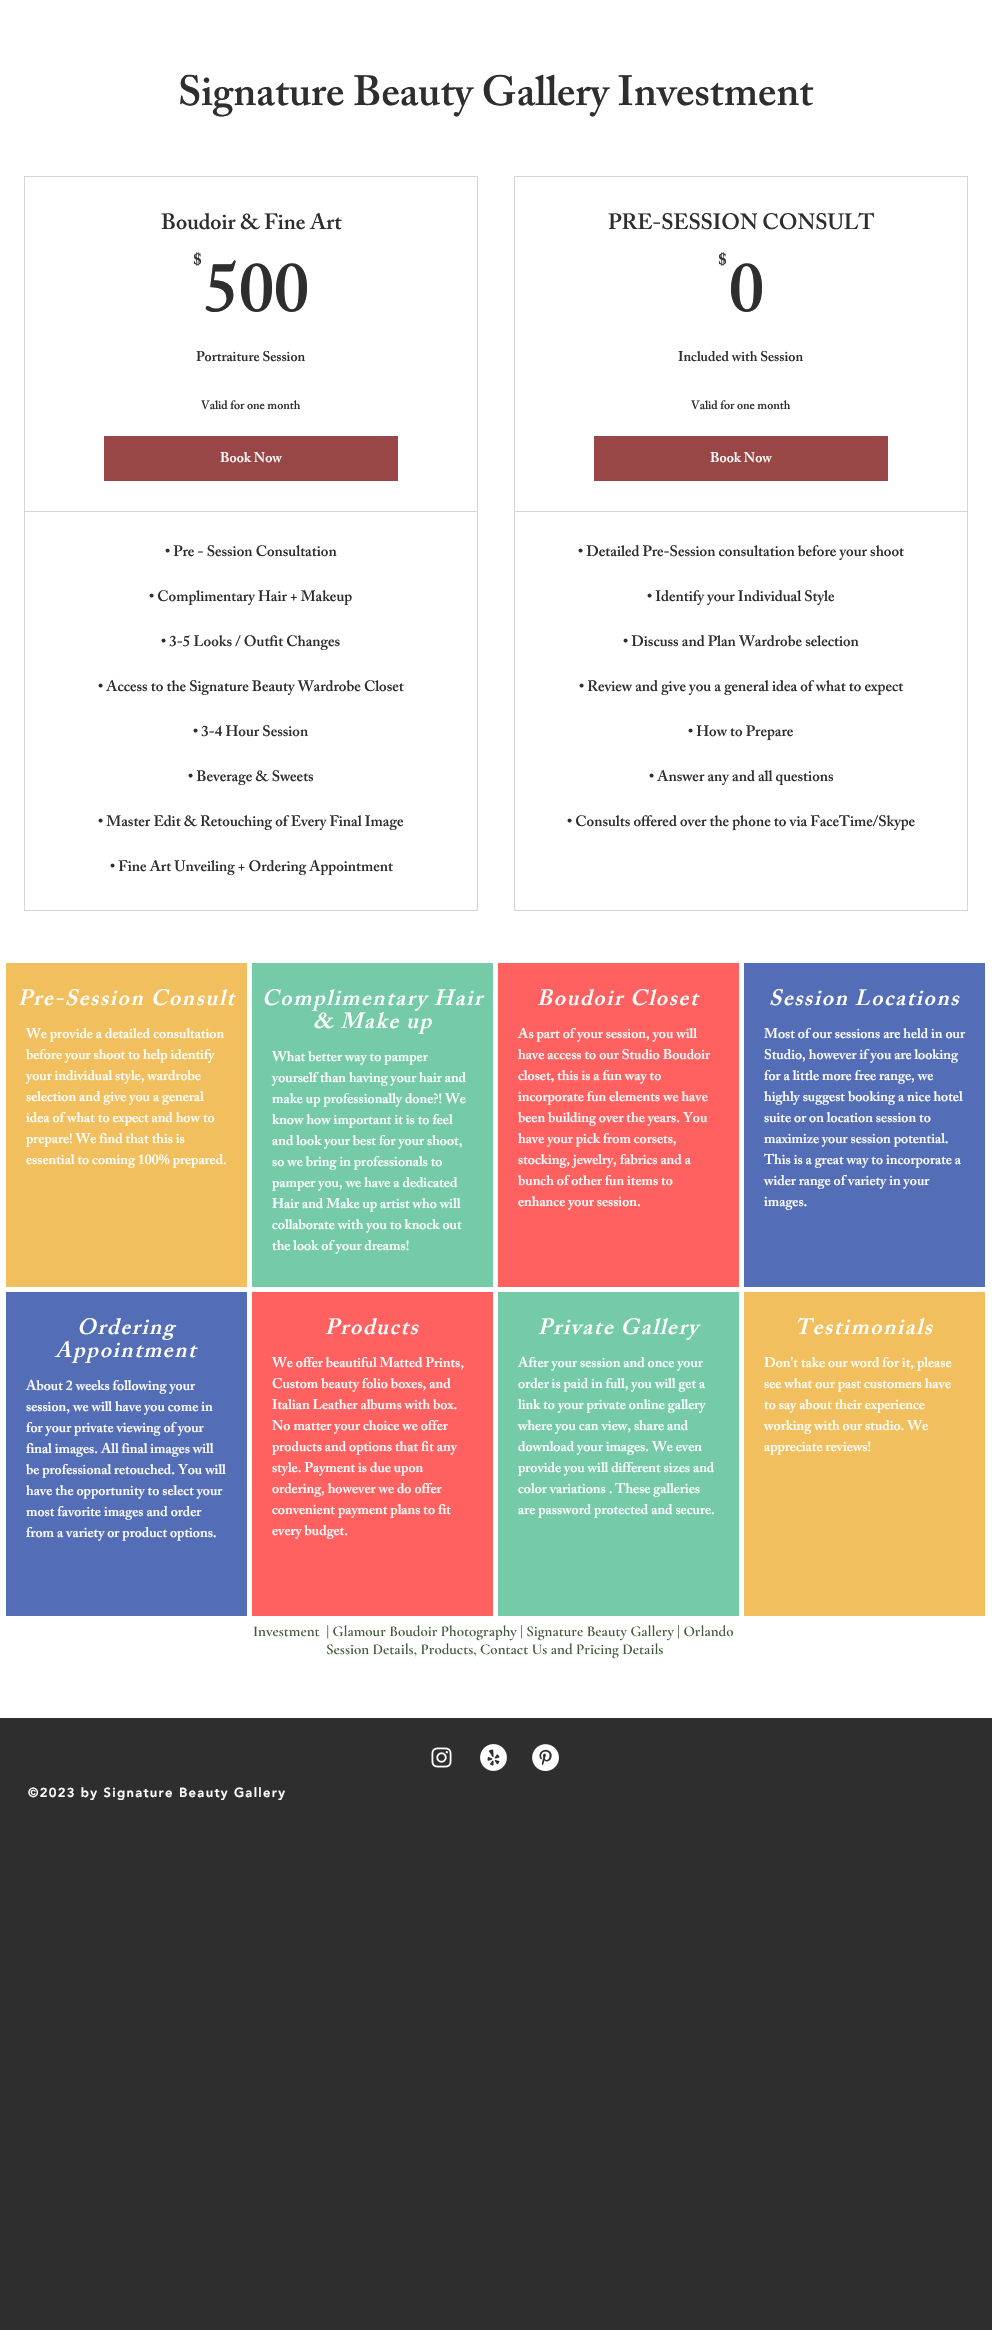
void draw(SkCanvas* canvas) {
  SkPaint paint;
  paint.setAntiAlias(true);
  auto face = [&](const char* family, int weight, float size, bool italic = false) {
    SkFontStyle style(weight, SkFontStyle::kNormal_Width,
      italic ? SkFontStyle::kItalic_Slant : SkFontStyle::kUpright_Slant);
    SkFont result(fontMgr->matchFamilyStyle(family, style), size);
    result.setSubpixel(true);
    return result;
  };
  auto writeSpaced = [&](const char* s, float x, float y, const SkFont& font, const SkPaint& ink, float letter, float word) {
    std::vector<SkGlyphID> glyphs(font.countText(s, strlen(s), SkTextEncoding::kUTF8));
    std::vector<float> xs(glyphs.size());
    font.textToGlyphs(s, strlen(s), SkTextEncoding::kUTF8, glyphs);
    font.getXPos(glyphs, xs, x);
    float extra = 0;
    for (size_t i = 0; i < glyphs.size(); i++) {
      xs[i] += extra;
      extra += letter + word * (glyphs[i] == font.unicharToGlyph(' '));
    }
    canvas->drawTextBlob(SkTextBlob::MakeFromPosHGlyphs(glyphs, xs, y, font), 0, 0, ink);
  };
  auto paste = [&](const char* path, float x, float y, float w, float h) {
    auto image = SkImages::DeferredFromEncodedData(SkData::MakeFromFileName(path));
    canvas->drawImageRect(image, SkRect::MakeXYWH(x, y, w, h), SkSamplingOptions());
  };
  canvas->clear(0xffffffff);
  paint.setStroke(true);
  paint.setStrokeWidth(1);
  paint.setColor(0xffd5d5d5);
  canvas->drawRect(SkRect::MakeXYWH(24.5f, 176.5f, 453, 734), paint);
  paint.setStroke(false);
  paint.setColor(0xff994646);
  canvas->drawRect(SkRect::MakeXYWH(104, 436, 294, 45), paint);
  paint.setColor(0xffd5d5d5);
  canvas->drawRect(SkRect::MakeXYWH(25, 511, 452, 1), paint);
  paint.setStroke(true);
  canvas->drawRect(SkRect::MakeXYWH(514.5f, 176.5f, 453, 734), paint);
  paint.setStroke(false);
  {
    const struct { float x, y, w, h; SkColor color; } items[] = {
      {594, 436, 294, 45, 0xff994646},
      {515, 511, 452, 1, 0xffd5d5d5},
      {6, 963, 241, 324, 0xfff2bf5e},
      {6, 1292, 241, 324, 0xff536eb7},
      {252, 963, 241, 324, 0xff75cba8},
      {252, 1292, 241, 324, 0xffff6161},
      {498, 963, 241, 324, 0xffff6161},
      {498, 1292, 241, 324, 0xff75cba8},
      {744, 963, 241, 324, 0xff536eb7},
      {744, 1292, 241, 324, 0xfff2bf5e},
      {0, 1718, 992, 612, 0xff2f2e2e},
    };
    for (auto [x, y, w, h, color] : items) {
      paint.setColor(color);
      canvas->drawRect(SkRect::MakeXYWH(x, y, w, h), paint);
    }
  }
  paste("img/1.png", 431, 1747, 21, 21);
  paste("img/2.png", 480, 1744, 27, 27);
  paste("img/3.png", 532, 1744, 27, 27);
  auto f0 = face("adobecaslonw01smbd", 600, 42);
  canvas->drawString("Signature Beauty Gallery Investment", 178, 105, f0, paint);
  auto f1 = face("adobecaslonw01smbd", 600, 22);
  canvas->drawString("Boudoir & Fine Art", 161, 229, f1, paint);
  auto f2 = face("adobecaslonw01smbd", 600, 18);
  canvas->drawString("$", 193, 265, f2, paint);
  auto f3 = face("adobecaslonw01smbd", 600, 70);
  canvas->drawString("500", 204, 311, f3, paint);
  auto f4 = face("adobecaslonw01smbd", 600, 14);
  canvas->drawString("Portraiture Session", 196, 361, f4, paint);
  auto f5 = face("adobecaslonw01smbd", 600, 12);
  canvas->drawString("Valid for one month", 201, 409, f5, paint);
  paint.setColor(0xffffffff);
  canvas->drawString("Book Now", 220, 462, f4, paint);
  auto f6 = face("adobecaslonw01smbd", 600, 15);
  paint.setColor(0xff2f2e2e);
  {
    const struct { const char* s; float x, y; } items[] = {
      {"• Pre - Session Consultation", 165, 556},
      {"• Complimentary Hair + Makeup", 149, 601},
      {"• 3-5 Looks / Outfit Changes", 161, 646},
      {"• Access to the Signature Beauty Wardrobe Closet", 98, 691},
      {"• 3-4 Hour Session", 193, 736},
      {"• Beverage & Sweets", 188, 781},
      {"• Master Edit & Retouching of Every Final Image", 98, 826},
      {"• Fine Art Unveiling + Ordering Appointment", 110, 871},
    };
    for (auto [s, x, y] : items) {
      canvas->drawString(s, x, y, f6, paint);
    }
  }
  canvas->drawString("PRE-SESSION CONSULT", 608, 229, f1, paint);
  canvas->drawString("$", 718, 265, f2, paint);
  canvas->drawString("0", 729, 311, f3, paint);
  canvas->drawString("Included with Session", 678, 361, f4, paint);
  canvas->drawString("Valid for one month", 691, 409, f5, paint);
  paint.setColor(0xffffffff);
  canvas->drawString("Book Now", 710, 462, f4, paint);
  paint.setColor(0xff2f2e2e);
  {
    const struct { const char* s; float x, y; } items[] = {
      {"• Detailed Pre-Session consultation before your shoot", 578, 556},
      {"• Identify your Individual Style", 647, 601},
      {"• Discuss and Plan Wardrobe selection", 623, 646},
      {"• Review and give you a general idea of what to expect", 579, 691},
      {"• How to Prepare", 688, 736},
      {"• Answer any and all questions", 649, 781},
      {"• Consults offered over the phone to via FaceTime/Skype", 567, 826},
    };
    for (auto [s, x, y] : items) {
      canvas->drawString(s, x, y, f6, paint);
    }
  }
  auto f7 = face("adobecaslonw01smbd", 600, 22, true);
  paint.setColor(0xffffffff);
  writeSpaced("Pre-Session Consult", 18, 1005, f7, paint, 1.75f, 0);
  {
    const struct { const char* s; float x, y; } items[] = {
      {"We provide a detailed consultation", 26, 1038},
      {"before your shoot to help identify", 26, 1059},
      {"your individual style, wardrobe", 26, 1080},
      {"selection and give you a general", 26, 1101},
      {"idea of what to expect and how to", 26, 1122},
      {"prepare! We find that this is", 26, 1143},
      {"essential to coming 100% prepared.", 26, 1164},
    };
    for (auto [s, x, y] : items) {
      canvas->drawString(s, x, y, f4, paint);
    }
  }
  writeSpaced("Ordering", 77, 1334, f7, paint, 1.75f, 0);
  writeSpaced("Appointment", 55, 1357, f7, paint, 1.75f, 0);
  {
    const struct { const char* s; float x, y; } items[] = {
      {"About 2 weeks following your", 26, 1390},
      {"session, we will have you come in", 26, 1411},
      {"for your private viewing of your", 26, 1432},
      {"final images. All final images will", 26, 1453},
      {"be professional retouched. You will", 26, 1474},
      {"have the opportunity to select your", 26, 1495},
      {"most favorite images and order", 26, 1516},
      {"from a variety or product options.", 26, 1537},
    };
    for (auto [s, x, y] : items) {
      canvas->drawString(s, x, y, f4, paint);
    }
  }
  writeSpaced("Complimentary Hair", 262, 1005, f7, paint, 1.75f, 0);
  writeSpaced("& Make up", 313, 1028, f7, paint, 1.75f, 0);
  {
    const struct { const char* s; float x, y; } items[] = {
      {"What better way to pamper", 272, 1061},
      {"yourself than having your hair and", 272, 1082},
      {"make up professionally done?! We", 272, 1103},
      {"know how important it is to feel", 272, 1124},
      {"and look your best for your shoot,", 272, 1145},
      {"so we bring in professionals to", 272, 1166},
      {"pamper you, we have a dedicated", 272, 1187},
      {"Hair and Make up artist who will", 272, 1208},
      {"collaborate with you to knock out", 272, 1229},
      {"the look of your dreams!", 272, 1250},
    };
    for (auto [s, x, y] : items) {
      canvas->drawString(s, x, y, f4, paint);
    }
  }
  writeSpaced("Products", 325, 1334, f7, paint, 1.75f, 0);
  {
    const struct { const char* s; float x, y; } items[] = {
      {"We offer beautiful Matted Prints,", 272, 1367},
      {"Custom beauty folio boxes, and", 272, 1388},
      {"Italian Leather albums with box.", 272, 1409},
      {"No matter your choice we offer", 272, 1430},
      {"products and options that fit any", 272, 1451},
      {"style. Payment is due upon", 272, 1472},
      {"ordering, however we do offer", 272, 1493},
      {"convenient payment plans to fit", 272, 1514},
      {"every budget.", 272, 1535},
    };
    for (auto [s, x, y] : items) {
      canvas->drawString(s, x, y, f4, paint);
    }
  }
  writeSpaced("Boudoir Closet", 537, 1005, f7, paint, 1.75f, 0);
  {
    const struct { const char* s; float x, y; } items[] = {
      {"As part of your session, you will", 518, 1038},
      {"have access to our Studio Boudoir", 518, 1059},
      {"closet, this is a fun way to", 518, 1080},
      {"incorporate fun elements we have", 518, 1101},
      {"been building over the years. You", 518, 1122},
      {"have your pick from corsets,", 518, 1143},
      {"stocking, jewelry, fabrics and a", 518, 1164},
      {"bunch of other fun items to", 518, 1185},
      {"enhance your session.", 518, 1206},
    };
    for (auto [s, x, y] : items) {
      canvas->drawString(s, x, y, f4, paint);
    }
  }
  writeSpaced("Private Gallery", 538, 1334, f7, paint, 1.75f, 0);
  {
    const struct { const char* s; float x, y; } items[] = {
      {"After your session and once your", 518, 1367},
      {"order is paid in full, you will get a", 518, 1388},
      {"link to your private online gallery", 518, 1409},
      {"where you can view, share and", 518, 1430},
      {"download your images. We even", 518, 1451},
      {"provide you will different sizes and", 518, 1472},
      {"color variations . These galleries", 518, 1493},
      {"are password protected and secure.", 518, 1514},
    };
    for (auto [s, x, y] : items) {
      canvas->drawString(s, x, y, f4, paint);
    }
  }
  writeSpaced("Session Locations", 769, 1005, f7, paint, 1.75f, 0);
  {
    const struct { const char* s; float x, y; } items[] = {
      {"Most of our sessions are held in our", 764, 1038},
      {"Studio, however if you are looking", 764, 1059},
      {"for a little more free range, we", 764, 1080},
      {"highly suggest booking a nice hotel", 764, 1101},
      {"suite or on location session to", 764, 1122},
      {"maximize your session potential.", 764, 1143},
      {"This is a great way to incorporate a", 764, 1164},
      {"wider range of variety in your", 764, 1185},
      {"images.", 764, 1206},
    };
    for (auto [s, x, y] : items) {
      canvas->drawString(s, x, y, f4, paint);
    }
  }
  writeSpaced("Testimonials", 795, 1334, f7, paint, 1.75f, 0);
  {
    const struct { const char* s; float x, y; } items[] = {
      {"Don't take our word for it, please", 764, 1367},
      {"see what our past customers have", 764, 1388},
      {"to say about their experience", 764, 1409},
      {"working with our studio. We", 764, 1430},
      {"appreciate reviews!", 764, 1451},
    };
    for (auto [s, x, y] : items) {
      canvas->drawString(s, x, y, f4, paint);
    }
  }
  auto f8 = face("Cormorant Garamond", 600, 15);
  paint.setColor(0xff44593a);
  canvas->drawString("Investment  | Glamour Boudoir Photography | Signature Beauty Gallery | Orlando", 253, 1636, f8, paint);
  canvas->drawString("Session Details, Products, Contact Us and Pricing Details", 326, 1654, f8, paint);
  auto f9 = face("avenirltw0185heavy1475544", 900, 13);
  paint.setColor(0xffffffff);
  writeSpaced("©2023 by Signature Beauty Gallery", 28, 1797, f9, paint, 1.3f, 0);
}
